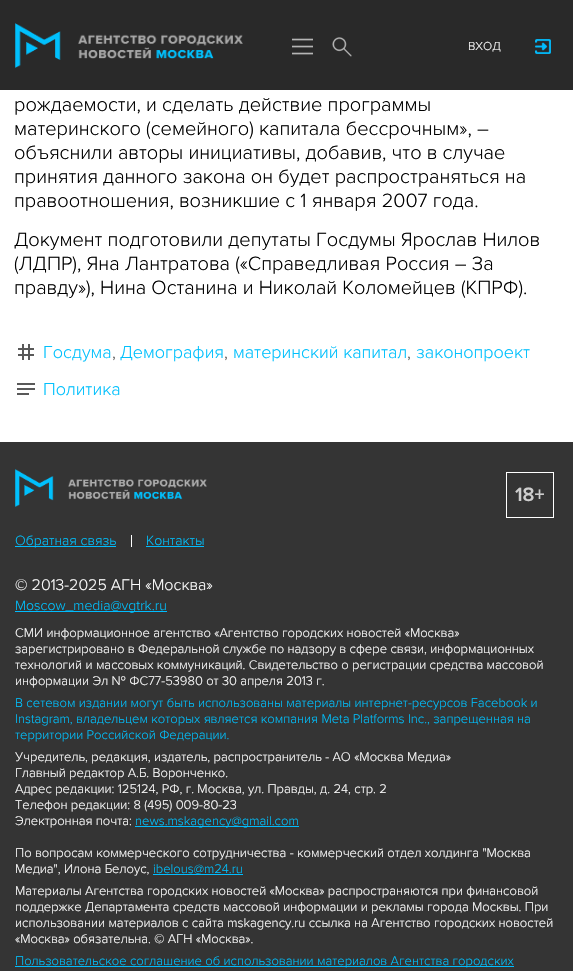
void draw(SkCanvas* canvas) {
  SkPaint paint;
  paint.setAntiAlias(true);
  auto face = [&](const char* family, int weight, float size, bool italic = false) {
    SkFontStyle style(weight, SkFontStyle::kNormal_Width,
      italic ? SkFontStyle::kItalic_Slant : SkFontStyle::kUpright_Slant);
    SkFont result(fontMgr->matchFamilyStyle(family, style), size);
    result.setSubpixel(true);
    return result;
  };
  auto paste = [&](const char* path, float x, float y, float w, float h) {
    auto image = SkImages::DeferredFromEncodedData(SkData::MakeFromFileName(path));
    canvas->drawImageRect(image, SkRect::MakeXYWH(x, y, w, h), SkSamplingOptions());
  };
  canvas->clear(0xffffffff);
  paint.setColor(0xff292929);
  canvas->drawRect(SkRect::MakeXYWH(0, 0, 573, 90), paint);
  paste("img/1.png", 15, 23, 228, 45);
  paste("img/2.png", 292, 38, 21, 17);
  paste("img/3.png", 332, 37, 20, 20);
  paste("img/4.png", 535, 39, 16, 15);
  paste("img/5.png", 18, 344, 16, 16);
  paste("img/6.png", 17, 383, 18, 12);
  paint.setColor(0xff343434);
  canvas->drawRect(SkRect::MakeXYWH(0, 442, 573, 529), paint);
  paint.setStroke(true);
  paint.setStrokeWidth(1);
  paint.setColor(0xffffffff);
  canvas->drawRect(SkRect::MakeXYWH(506.5f, 472.5f, 47, 45), paint);
  paste("img/7.png", 15, 469, 192, 38);
  paint.setStroke(false);
  {
    const struct { float x, y, w, h; SkColor color; } items[] = {
      {15, 546, 101, 1, 0xff00bdff},
      {131, 535, 1, 12, 0xffffffff},
      {146, 546, 58, 1, 0xff00bdff},
      {15, 611, 152, 1, 0xff00bdff},
      {135, 826, 164, 1, 0xff00bdff},
      {153, 874, 90, 1, 0xff00bdff},
      {15, 966, 499, 1, 0xff00bdff},
    };
    for (auto [x, y, w, h, color] : items) {
      paint.setColor(color);
      canvas->drawRect(SkRect::MakeXYWH(x, y, w, h), paint);
    }
  }
  auto f0 = face("Proxima Nova", 300, 12);
  paint.setColor(0xffffffff);
  canvas->drawString("ВХОД", 468, 50, f0, paint);
  auto f1 = face("Proxima Nova", 300, 20);
  paint.setColor(0xff000000);
  {
    const struct { const char* s; float x, y; } items[] = {
      {"рождаемости, и сделать действие программы", 14, 111},
      {"материнского (семейного) капитала бессрочным», –", 14, 135},
      {"объяснили авторы инициативы, добавив, что в случае", 14, 159},
      {"принятия данного закона он будет распространяться на", 14, 183},
      {"правоотношения, возникшие с 1 января 2007 года.", 14, 207},
      {"Документ подготовили депутаты Госдумы Ярослав Нилов", 14, 246},
      {"(ЛДПР), Яна Лантратова («Справедливая Россия – За", 14, 270},
      {"правду»), Нина Останина и Николай Коломейцев (КПРФ).", 14, 294},
    };
    for (auto [s, x, y] : items) {
      canvas->drawString(s, x, y, f1, paint);
    }
  }
  auto f2 = face("Proxima Nova", 300, 18);
  paint.setColor(0xff00c0fd);
  canvas->drawString("Госдума", 43, 358, f2, paint);
  paint.setColor(0xff636363);
  canvas->drawString(",", 112, 358, f2, paint);
  paint.setColor(0xff00c0fd);
  canvas->drawString("Демография", 120, 358, f2, paint);
  paint.setColor(0xff636363);
  canvas->drawString(",", 224, 358, f2, paint);
  paint.setColor(0xff00c0fd);
  canvas->drawString("материнский капитал", 233, 358, f2, paint);
  paint.setColor(0xff636363);
  canvas->drawString(",", 407, 358, f2, paint);
  paint.setColor(0xff00c0fd);
  canvas->drawString("законопроект", 416, 358, f2, paint);
  canvas->drawString("Политика", 43, 395, f2, paint);
  auto f3 = face("Proxima Nova", 600, 20);
  paint.setColor(0xffcdcdcd);
  canvas->drawString("18+", 515, 501, f3, paint);
  auto f4 = face("Proxima Nova", 300, 14);
  paint.setColor(0xff00c0fd);
  canvas->drawString("Обратная связь", 15, 545, f4, paint);
  canvas->drawString("Контакты", 146, 545, f4, paint);
  auto f5 = face("Proxima Nova", 300, 16);
  paint.setColor(0xffffffff);
  canvas->drawString("© 2013-2025 АГН «Москва»", 15, 590, f5, paint);
  paint.setColor(0xff00c0fd);
  canvas->drawString("Moscow_media@vgtrk.ru", 15, 610, f4, paint);
  auto f6 = face("Proxima Nova", 300, 13);
  paint.setColor(0xffffffff);
  {
    const struct { const char* s; float x, y; } items[] = {
      {"СМИ информационное агентство «Агентство городских новостей «Москва»", 15, 637},
      {"зарегистрировано в Федеральной службе по надзору в сфере связи, информационных", 15, 653},
      {"технологий и массовых коммуникаций. Свидетельство о регистрации средства массовой", 15, 669},
      {"информации Эл № ФС77-53980 от 30 апреля 2013 г.", 15, 685},
    };
    for (auto [s, x, y] : items) {
      canvas->drawString(s, x, y, f6, paint);
    }
  }
  paint.setColor(0xff00c0fd);
  {
    const struct { const char* s; float x, y; } items[] = {
      {"В сетевом издании могут быть использованы материалы интернет-ресурсов Facebook и", 15, 707},
      {"Instagram, владельцем которых является компания Meta Platforms Inc., запрещенная на", 15, 723},
      {"территории Российской Федерации.", 15, 739},
    };
    for (auto [s, x, y] : items) {
      canvas->drawString(s, x, y, f6, paint);
    }
  }
  paint.setColor(0xffffffff);
  {
    const struct { const char* s; float x, y; } items[] = {
      {"Учредитель, редакция, издатель, распространитель - АО «Москва Медиа»", 15, 761},
      {"Главный редактор А.Б. Воронченко.", 15, 777},
      {"Адрес редакции: 125124, РФ, г. Москва, ул. Правды, д. 24, стр. 2", 15, 793},
      {"Телефон редакции: 8 (495) 009-80-23", 15, 809},
      {"Электронная почта:", 15, 825},
    };
    for (auto [s, x, y] : items) {
      canvas->drawString(s, x, y, f6, paint);
    }
  }
  paint.setColor(0xff00c0fd);
  canvas->drawString("news.mskagency@gmail.com", 135, 825, f6, paint);
  paint.setColor(0xffffffff);
  canvas->drawString("По вопросам коммерческого сотрудничества - коммерческий отдел холдинга \"Москва", 15, 857, f6, paint);
  canvas->drawString("Медиа\", Илона Белоус,", 15, 873, f6, paint);
  paint.setColor(0xff00c0fd);
  canvas->drawString("ibelous@m24.ru", 153, 873, f6, paint);
  paint.setColor(0xffffffff);
  {
    const struct { const char* s; float x, y; } items[] = {
      {"Материалы Агентства городских новостей «Москва» распространяются при финансовой", 15, 895},
      {"поддержке Департамента средств массовой информации и рекламы города Москвы. При", 15, 911},
      {"использовании материалов с сайта mskagency.ru ссылка на Агентство городских новостей", 15, 927},
      {"«Москва» обязательна. © АГН «Москва».", 15, 943},
    };
    for (auto [s, x, y] : items) {
      canvas->drawString(s, x, y, f6, paint);
    }
  }
  paint.setColor(0xff00c0fd);
  canvas->drawString("Пользовательское соглашение об использовании материалов Агентства городских", 15, 965, f6, paint);
}
